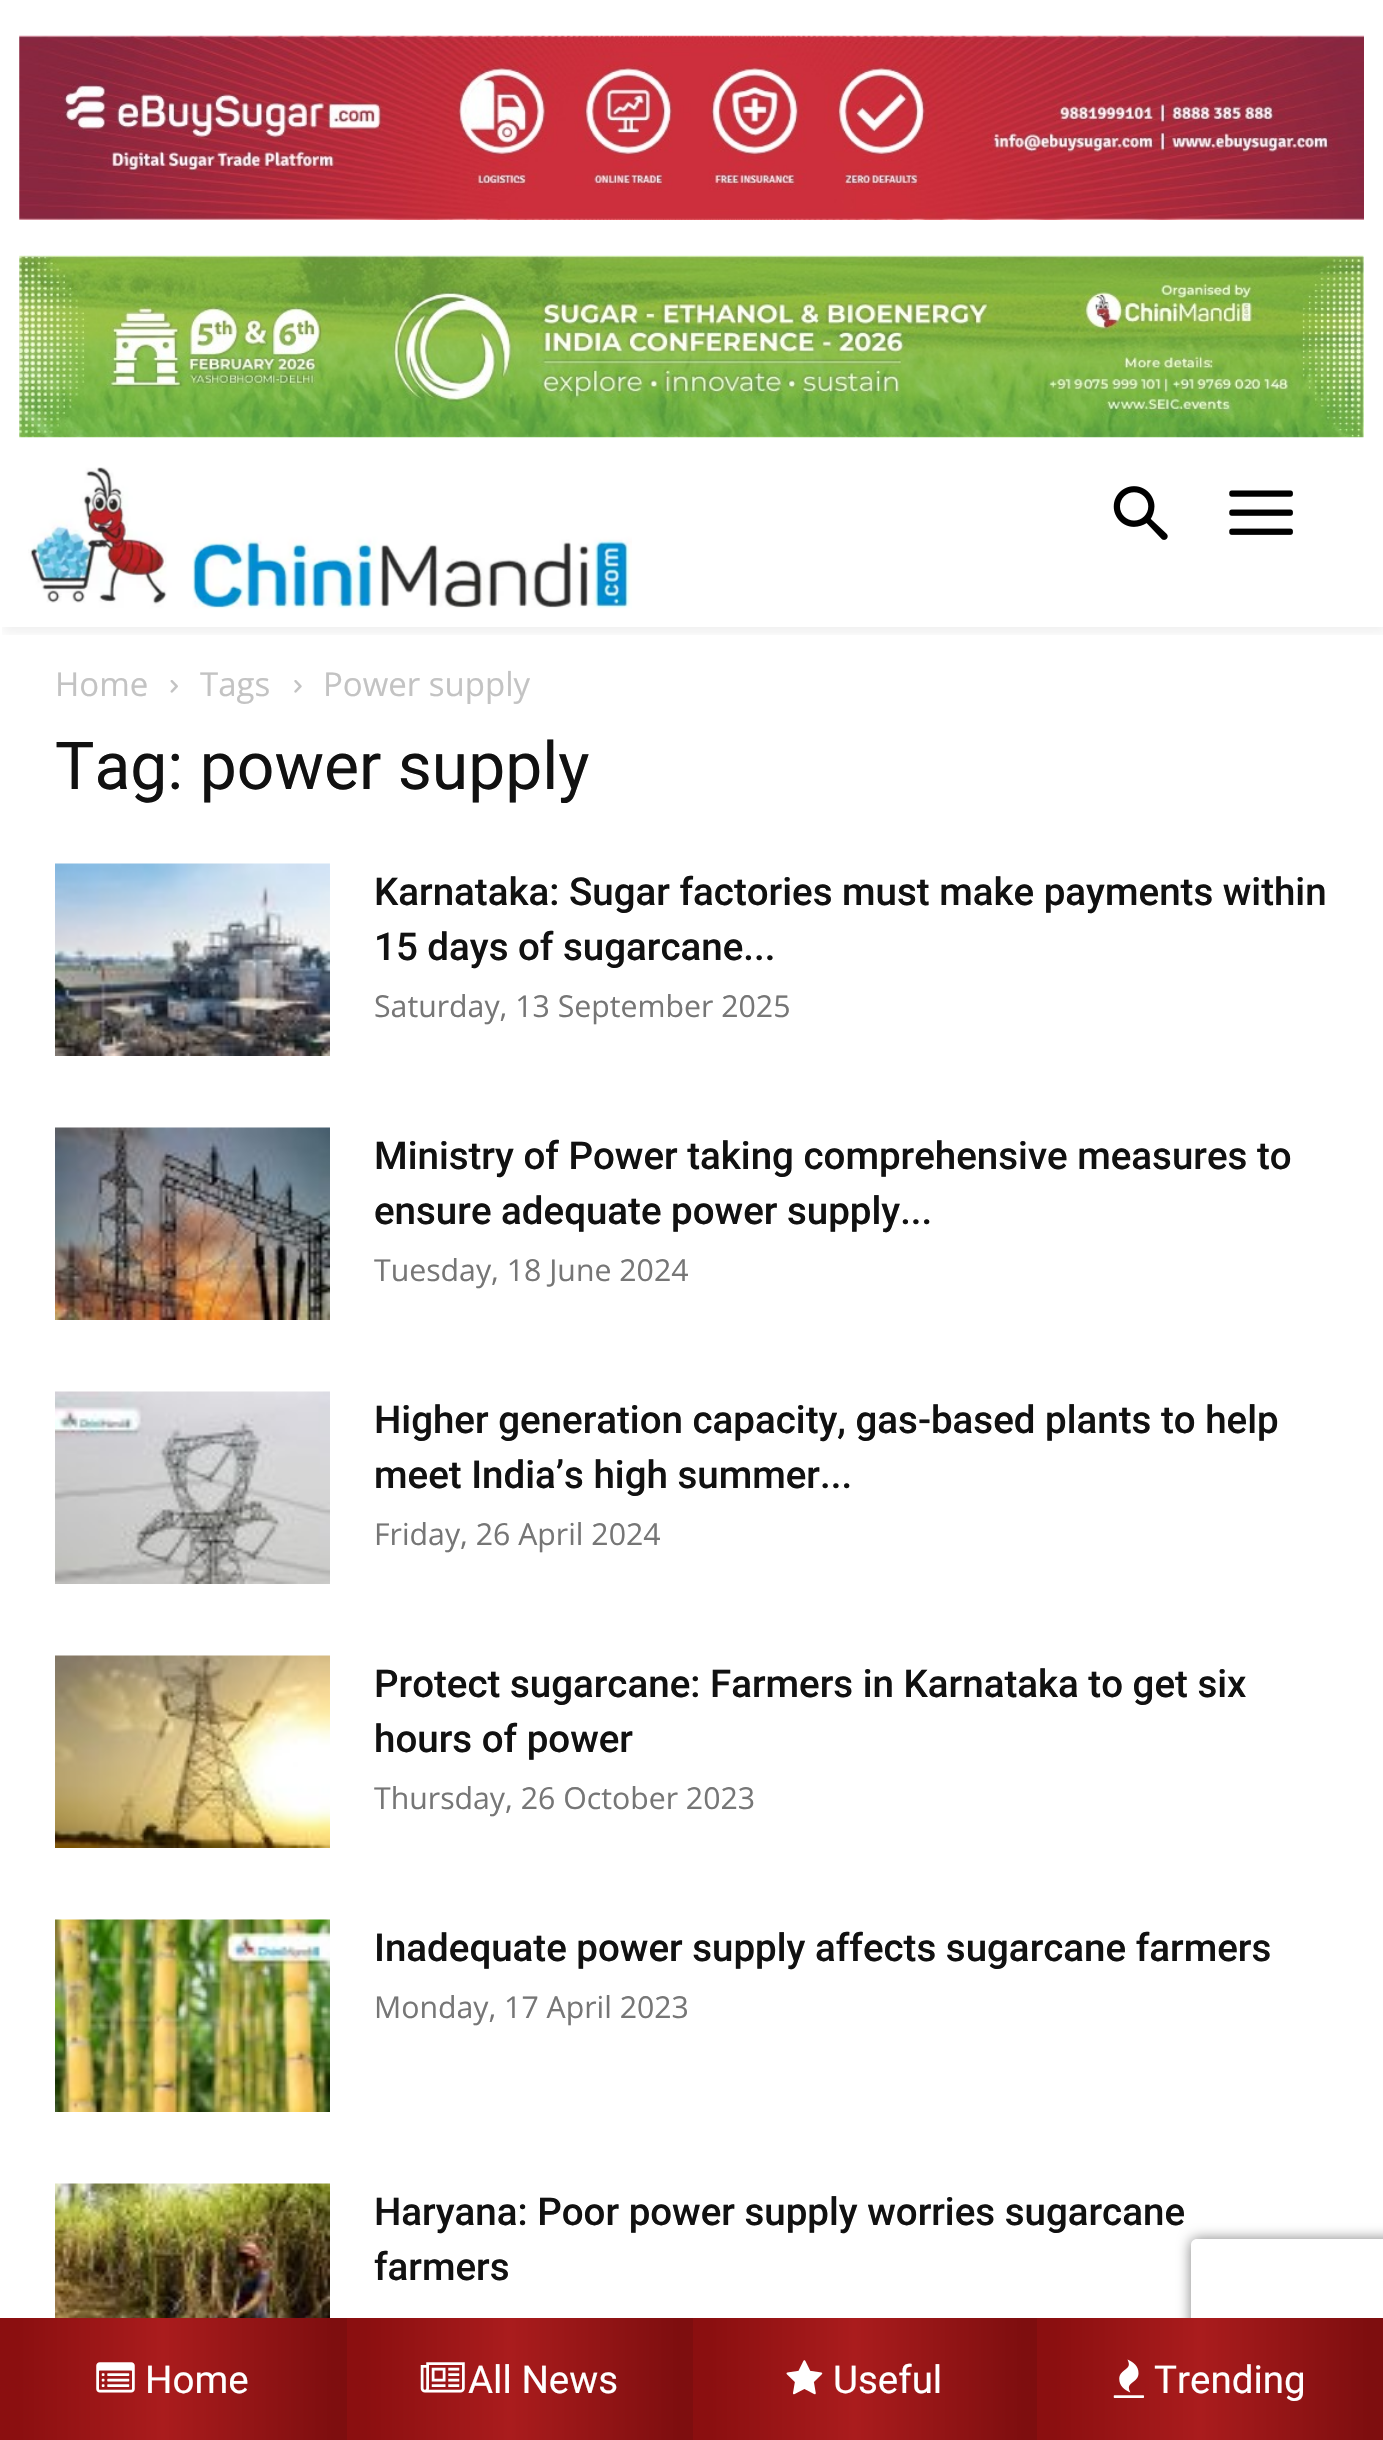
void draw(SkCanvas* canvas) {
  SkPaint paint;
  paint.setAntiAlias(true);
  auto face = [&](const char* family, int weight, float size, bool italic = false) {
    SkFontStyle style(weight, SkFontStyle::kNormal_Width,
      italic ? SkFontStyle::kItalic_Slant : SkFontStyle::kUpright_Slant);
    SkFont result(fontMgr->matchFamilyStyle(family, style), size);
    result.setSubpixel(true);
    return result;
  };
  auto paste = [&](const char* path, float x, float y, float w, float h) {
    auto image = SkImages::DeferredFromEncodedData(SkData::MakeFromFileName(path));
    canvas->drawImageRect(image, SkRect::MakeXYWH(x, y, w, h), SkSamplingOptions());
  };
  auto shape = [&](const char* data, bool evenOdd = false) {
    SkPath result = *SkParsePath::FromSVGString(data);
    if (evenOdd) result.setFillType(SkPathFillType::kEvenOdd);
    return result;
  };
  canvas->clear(0xffffffff);
  paste("img/1.png", 19, 35, 1345, 185);
  paste("img/2.png", 19, 255, 1345, 183);
  paste("img/3.png", 28, 467, 604, 142);
  paste("img/4.png", 1113, 486, 55, 54);
  paste("img/5.png", 1229, 490, 64, 45);
  canvas->save();
  canvas->clipRect(SkRect::MakeXYWH(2, 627, 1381, 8));
  paint.setColor(0x0f000000);
  paint.setMaskFilter(SkMaskFilter::MakeBlur(kNormal_SkBlurStyle, 5.5f));
  canvas->drawRect(SkRect::MakeXYWH(3, 459, 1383, 174), paint);
  paint.setMaskFilter(nullptr);
  canvas->restore();
  paste("img/6.png", 170, 680, 8, 13);
  paste("img/7.png", 294, 680, 8, 13);
  paste("img/8.png", 55, 863, 275, 193);
  paste("img/9.png", 55, 1127, 275, 193);
  paste("img/10.png", 55, 1391, 275, 193);
  paste("img/11.png", 55, 1655, 275, 193);
  paste("img/12.png", 55, 1919, 275, 193);
  paste("img/13.png", 55, 2183, 275, 135);
  canvas->save();
  canvas->clipPath(shape("M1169 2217H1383V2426H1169ZM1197 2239H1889C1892.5 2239 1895 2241.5 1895 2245V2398C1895 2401.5 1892.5 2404 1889 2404H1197C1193.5 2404 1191 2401.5 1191 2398V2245C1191 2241.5 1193.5 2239 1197 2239Z", true), true);
  paint.setColor(0xff808080);
  paint.setMaskFilter(SkMaskFilter::MakeBlur(kNormal_SkBlurStyle, 7));
  canvas->drawRoundRect(SkRect::MakeXYWH(1191, 2239, 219, 165), 6, 6, paint);
  paint.setMaskFilter(nullptr);
  canvas->restore();
  {
    const SkColor colors[] = {0xff8b0f10, 0xffaa1c1d, 0xff7e0e0f};
    const float stops[] = {0.05f, 0.47f, 0.96f};
    const SkPoint ends[] = {{0, 2380}, {347, 2380}};
    paint.setShader(SkGradientShader::MakeLinear(ends, colors, stops, 3, SkTileMode::kClamp));
    paint.setAlpha(255);
  }
  canvas->drawRect(SkRect::MakeXYWH(0, 2318, 347, 122), paint);
  paste("img/14.png", 96, 2362, 39, 31);
  {
    const SkColor colors[] = {0xff8b0f10, 0xffaa1c1d, 0xff7e0e0f};
    const float stops[] = {0.05f, 0.47f, 0.96f};
    const SkPoint ends[] = {{347, 2380}, {693, 2380}};
    paint.setShader(SkGradientShader::MakeLinear(ends, colors, stops, 3, SkTileMode::kClamp));
    paint.setAlpha(255);
  }
  canvas->drawRect(SkRect::MakeXYWH(347, 2318, 346, 122), paint);
  paste("img/15.png", 420, 2362, 45, 31);
  {
    const SkColor colors[] = {0xff8b0f10, 0xffaa1c1d, 0xff7e0e0f};
    const float stops[] = {0.05f, 0.47f, 0.96f};
    const SkPoint ends[] = {{693, 2380}, {1037, 2380}};
    paint.setShader(SkGradientShader::MakeLinear(ends, colors, stops, 3, SkTileMode::kClamp));
    paint.setAlpha(255);
  }
  canvas->drawRect(SkRect::MakeXYWH(693, 2318, 344, 122), paint);
  paste("img/16.png", 786, 2360, 37, 35);
  {
    const SkColor colors[] = {0xff8b0f10, 0xffaa1c1d, 0xff7e0e0f};
    const float stops[] = {0.05f, 0.47f, 0.96f};
    const SkPoint ends[] = {{1037, 2380}, {1383, 2380}};
    paint.setShader(SkGradientShader::MakeLinear(ends, colors, stops, 3, SkTileMode::kClamp));
    paint.setAlpha(255);
  }
  canvas->drawRect(SkRect::MakeXYWH(1037, 2318, 346, 122), paint);
  paste("img/17.png", 1113, 2359, 31, 39);
  auto f0 = face("Open Sans", 400, 33);
  paint.setShader(nullptr);
  paint.setColor(0xffc3c3c3);
  {
    const struct { const char* s; float x, y; } items[] = {
      {"Home", 55, 696},
      {"Tags", 200, 696},
      {"Power supply", 323, 696},
    };
    for (auto [s, x, y] : items) {
      canvas->drawString(s, x, y, f0, paint);
    }
  }
  auto f1 = face("Roboto", 400, 66);
  paint.setColor(0xff111111);
  canvas->drawString("Tag: power supply", 55, 789, f1, paint);
  auto f2 = face("Roboto", 500, 38.5f);
  canvas->drawString("Karnataka: Sugar factories must make payments within", 374, 905, f2, paint);
  canvas->drawString("15 days of sugarcane...", 374, 960, f2, paint);
  auto f3 = face("Open Sans", 400, 30.25f);
  paint.setColor(0xff767676);
  canvas->drawString("Saturday, 13 September 2025", 374, 1017, f3, paint);
  paint.setColor(0xff111111);
  canvas->drawString("Ministry of Power taking comprehensive measures to", 374, 1169, f2, paint);
  canvas->drawString("ensure adequate power supply...", 374, 1224, f2, paint);
  paint.setColor(0xff767676);
  canvas->drawString("Tuesday, 18 June 2024", 374, 1281, f3, paint);
  paint.setColor(0xff111111);
  canvas->drawString("Higher generation capacity, gas-based plants to help", 374, 1433, f2, paint);
  canvas->drawString("meet India’s high summer...", 374, 1488, f2, paint);
  paint.setColor(0xff767676);
  canvas->drawString("Friday, 26 April 2024", 374, 1545, f3, paint);
  paint.setColor(0xff111111);
  canvas->drawString("Protect sugarcane: Farmers in Karnataka to get six", 374, 1697, f2, paint);
  canvas->drawString("hours of power", 374, 1752, f2, paint);
  paint.setColor(0xff767676);
  canvas->drawString("Thursday, 26 October 2023", 374, 1809, f3, paint);
  paint.setColor(0xff111111);
  canvas->drawString("Inadequate power supply affects sugarcane farmers", 374, 1961, f2, paint);
  paint.setColor(0xff767676);
  canvas->drawString("Monday, 17 April 2023", 374, 2018, f3, paint);
  paint.setColor(0xff111111);
  canvas->drawString("Haryana: Poor power supply worries sugarcane", 374, 2225, f2, paint);
  canvas->drawString("farmers", 374, 2280, f2, paint);
  auto f4 = face("Roboto", 400, 38.5f);
  paint.setColor(0xffffffff);
  {
    const struct { const char* s; float x, y; } items[] = {
      {"Home", 145, 2393},
      {"All News", 468, 2393},
      {"Useful", 833, 2393},
      {"Trending", 1154, 2393},
    };
    for (auto [s, x, y] : items) {
      canvas->drawString(s, x, y, f4, paint);
    }
  }
}
